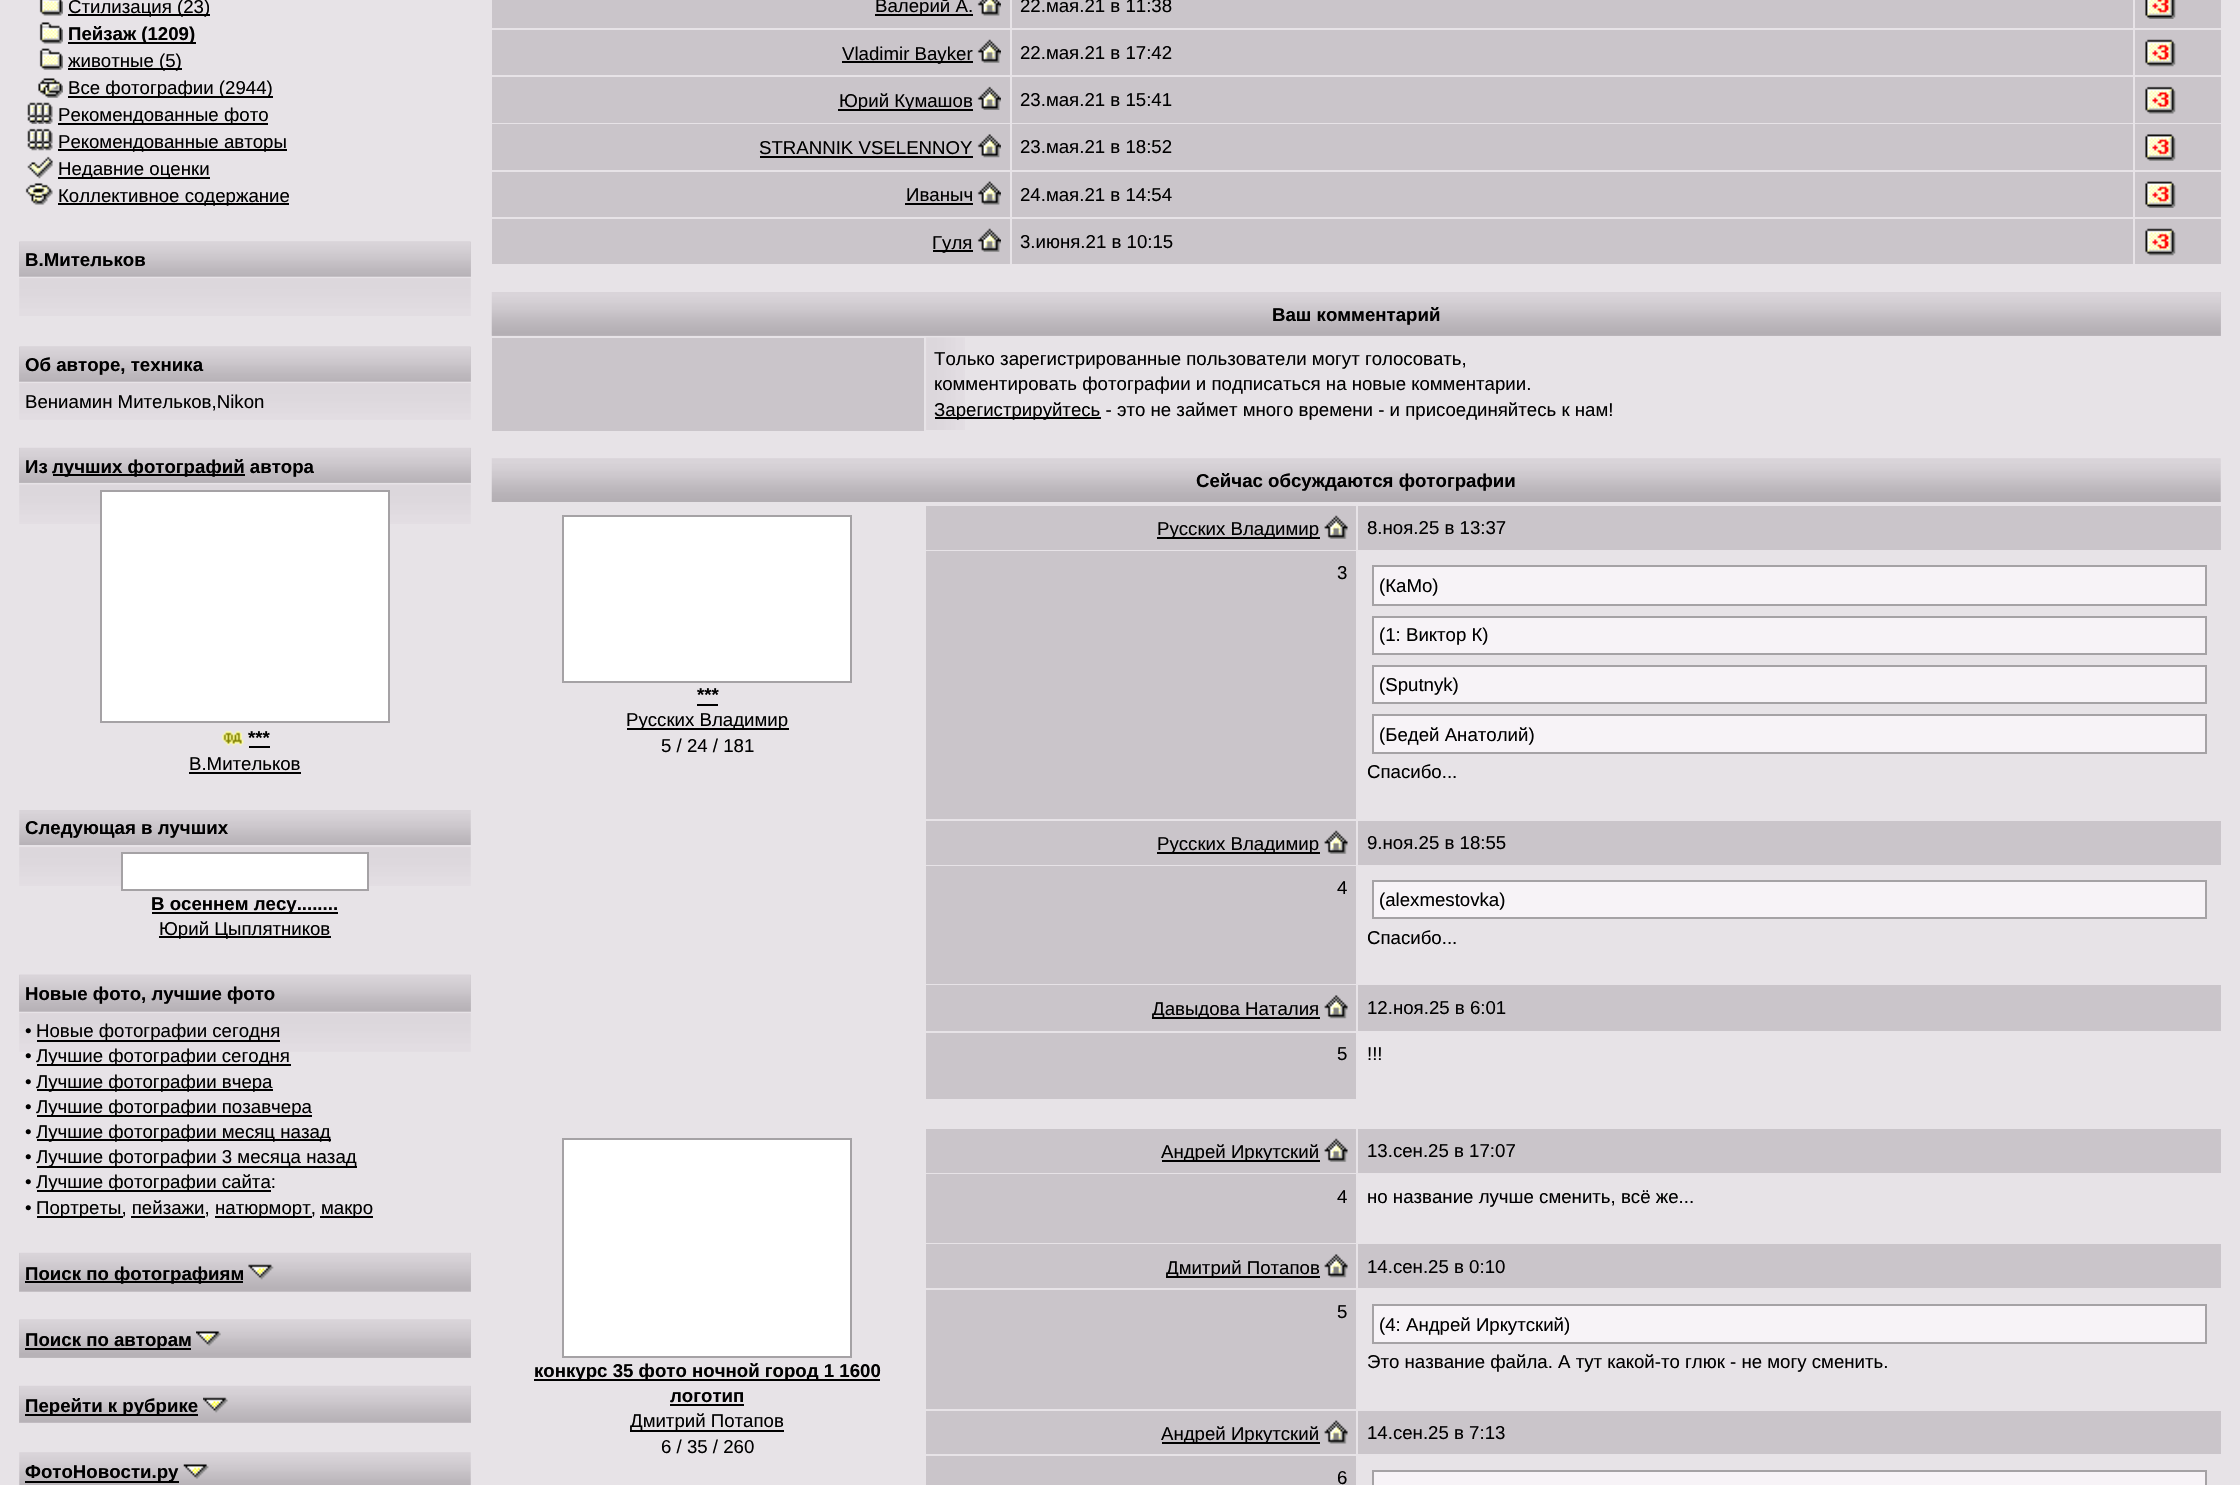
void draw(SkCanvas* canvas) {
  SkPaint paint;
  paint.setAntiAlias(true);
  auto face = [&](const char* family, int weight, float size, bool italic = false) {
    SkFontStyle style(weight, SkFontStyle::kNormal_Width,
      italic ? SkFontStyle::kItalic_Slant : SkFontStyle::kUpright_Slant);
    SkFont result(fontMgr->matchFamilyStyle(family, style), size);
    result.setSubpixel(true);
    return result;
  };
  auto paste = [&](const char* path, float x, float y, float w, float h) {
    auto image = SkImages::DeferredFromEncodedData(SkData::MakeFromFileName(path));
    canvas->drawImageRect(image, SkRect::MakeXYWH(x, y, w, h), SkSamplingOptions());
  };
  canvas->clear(0xffe7e3e7);
  paste("img/1.png", 39, 0, 24, 16);
  paint.setColor(0xff000000);
  canvas->drawRect(SkRect::MakeXYWH(68, 14, 142, 2), paint);
  paste("img/2.png", 39, 22, 24, 22);
  canvas->drawRect(SkRect::MakeXYWH(68, 42, 128, 2), paint);
  paste("img/3.png", 39, 48, 24, 22);
  canvas->drawRect(SkRect::MakeXYWH(68, 68, 114, 2), paint);
  paste("img/4.png", 38, 78, 25, 20);
  canvas->drawRect(SkRect::MakeXYWH(68, 96, 205, 2), paint);
  paste("img/5.png", 27, 102, 26, 22);
  canvas->drawRect(SkRect::MakeXYWH(58, 123, 210, 2), paint);
  paste("img/6.png", 27, 128, 26, 23);
  canvas->drawRect(SkRect::MakeXYWH(58, 149, 229, 2), paint);
  paste("img/7.png", 27, 156, 26, 23);
  canvas->drawRect(SkRect::MakeXYWH(58, 177, 152, 2), paint);
  paste("img/8.png", 25, 183, 28, 22);
  canvas->drawRect(SkRect::MakeXYWH(58, 203, 231, 2), paint);
  paint.setColor(0xffcac5ca);
  canvas->drawRect(SkRect::MakeXYWH(19, 242, 452, 35), paint);
  paste("img/9.png", 19, 241, 452, 36);
  paste("img/10.png", 19, 278, 452, 38);
  canvas->drawRect(SkRect::MakeXYWH(19, 347, 452, 35), paint);
  paste("img/9.png", 19, 346, 452, 36);
  paste("img/11.png", 19, 383, 452, 37);
  canvas->drawRect(SkRect::MakeXYWH(19, 448, 452, 35), paint);
  paste("img/12.png", 19, 447, 452, 36);
  paint.setColor(0xff000000);
  canvas->drawRect(SkRect::MakeXYWH(53, 474, 192, 2), paint);
  paste("img/13.png", 19, 484, 452, 40);
  paint.setColor(0xffffffff);
  canvas->drawRect(SkRect::MakeXYWH(101, 491, 288, 231), paint);
  paint.setStroke(true);
  paint.setStrokeWidth(2);
  paint.setColor(0xffa5a2a5);
  canvas->drawRect(SkRect::MakeXYWH(101, 491, 288, 231), paint);
  paste("img/14.png", 221, 730, 23, 16);
  paint.setStroke(false);
  paint.setColor(0xff000000);
  canvas->drawRect(SkRect::MakeXYWH(249, 746, 21, 2), paint);
  canvas->drawRect(SkRect::MakeXYWH(189, 772, 112, 2), paint);
  paste("img/15.png", 19, 810, 452, 35);
  paste("img/16.png", 19, 847, 452, 39);
  paint.setColor(0xffffffff);
  canvas->drawRect(SkRect::MakeXYWH(122, 853, 246, 37), paint);
  paint.setStroke(true);
  paint.setColor(0xffa5a2a5);
  canvas->drawRect(SkRect::MakeXYWH(122, 853, 246, 37), paint);
  paint.setStroke(false);
  {
    const struct { float x, y, w, h; SkColor color; } items[] = {
      {152, 912, 186, 2, 0xff000000},
      {159, 936, 172, 2, 0xff000000},
      {19, 975, 452, 37, 0xffcac5ca},
    };
    for (auto [x, y, w, h, color] : items) {
      paint.setColor(color);
      canvas->drawRect(SkRect::MakeXYWH(x, y, w, h), paint);
    }
  }
  paste("img/17.png", 19, 974, 452, 38);
  paste("img/18.png", 19, 1013, 452, 39);
  {
    const struct { float x, y, w, h; SkColor color; } items[] = {
      {37, 1040, 243, 2, 0xff000000},
      {37, 1064, 254, 2, 0xff000000},
      {37, 1089, 236, 2, 0xff000000},
      {37, 1115, 275, 2, 0xff000000},
      {37, 1139, 294, 2, 0xff000000},
      {37, 1166, 320, 2, 0xff000000},
      {37, 1190, 234, 2, 0xff000000},
      {37, 1216, 86, 2, 0xff000000},
      {215, 1216, 97, 2, 0xff000000},
      {320, 1216, 53, 2, 0xff000000},
      {131, 1216, 74, 2, 0xff000000},
      {19, 1253, 452, 39, 0xffcac5ca},
    };
    for (auto [x, y, w, h, color] : items) {
      paint.setColor(color);
      canvas->drawRect(SkRect::MakeXYWH(x, y, w, h), paint);
    }
  }
  paste("img/19.png", 19, 1252, 452, 40);
  paint.setColor(0xff000000);
  canvas->drawRect(SkRect::MakeXYWH(25, 1281, 218, 2), paint);
  paste("img/20.png", 248, 1264, 26, 16);
  paint.setColor(0xffcac5ca);
  canvas->drawRect(SkRect::MakeXYWH(19, 1320, 452, 38), paint);
  paste("img/21.png", 19, 1319, 452, 39);
  paint.setColor(0xff000000);
  canvas->drawRect(SkRect::MakeXYWH(25, 1348, 166, 2), paint);
  paste("img/22.png", 196, 1331, 25, 15);
  paint.setColor(0xffcac5ca);
  canvas->drawRect(SkRect::MakeXYWH(19, 1386, 452, 37), paint);
  paste("img/23.png", 19, 1385, 452, 38);
  paint.setColor(0xff000000);
  canvas->drawRect(SkRect::MakeXYWH(25, 1414, 173, 2), paint);
  paste("img/24.png", 203, 1397, 25, 16);
  paste("img/25.png", 19, 1452, 452, 33);
  canvas->drawRect(SkRect::MakeXYWH(25, 1481, 154, 2), paint);
  paste("img/26.png", 183, 1464, 26, 15);
  paint.setColor(0xffcac5ca);
  canvas->drawRect(SkRect::MakeXYWH(492, 0, 518, 28), paint);
  paint.setColor(0xff000000);
  canvas->drawRect(SkRect::MakeXYWH(875, 14, 98, 2), paint);
  paste("img/27.png", 977, 0, 24, 16);
  paint.setColor(0xffcac5ca);
  canvas->drawRect(SkRect::MakeXYWH(1012, 0, 1121, 28), paint);
  canvas->drawRect(SkRect::MakeXYWH(2135, 0, 86, 28), paint);
  paste("img/28.png", 2145, 0, 31, 19);
  canvas->drawRect(SkRect::MakeXYWH(492, 30, 518, 45), paint);
  paint.setColor(0xff000000);
  canvas->drawRect(SkRect::MakeXYWH(842, 61, 131, 2), paint);
  paste("img/29.png", 977, 39, 24, 24);
  paint.setColor(0xffcac5ca);
  canvas->drawRect(SkRect::MakeXYWH(1012, 30, 1121, 45), paint);
  canvas->drawRect(SkRect::MakeXYWH(2135, 30, 86, 45), paint);
  paste("img/30.png", 2145, 39, 31, 28);
  canvas->drawRect(SkRect::MakeXYWH(492, 77, 518, 46), paint);
  paint.setColor(0xff000000);
  canvas->drawRect(SkRect::MakeXYWH(838, 109, 135, 2), paint);
  paste("img/31.png", 977, 86, 24, 24);
  paint.setColor(0xffcac5ca);
  canvas->drawRect(SkRect::MakeXYWH(1012, 77, 1121, 46), paint);
  canvas->drawRect(SkRect::MakeXYWH(2135, 77, 86, 46), paint);
  paste("img/32.png", 2145, 86, 31, 28);
  canvas->drawRect(SkRect::MakeXYWH(492, 124, 518, 46), paint);
  paint.setColor(0xff000000);
  canvas->drawRect(SkRect::MakeXYWH(760, 156, 213, 2), paint);
  paste("img/33.png", 977, 134, 24, 24);
  paint.setColor(0xffcac5ca);
  canvas->drawRect(SkRect::MakeXYWH(1012, 124, 1121, 46), paint);
  canvas->drawRect(SkRect::MakeXYWH(2135, 124, 86, 46), paint);
  paste("img/34.png", 2145, 134, 31, 27);
  canvas->drawRect(SkRect::MakeXYWH(492, 172, 518, 45), paint);
  paint.setColor(0xff000000);
  canvas->drawRect(SkRect::MakeXYWH(905, 203, 68, 2), paint);
  paste("img/35.png", 977, 181, 24, 24);
  paint.setColor(0xffcac5ca);
  canvas->drawRect(SkRect::MakeXYWH(1012, 172, 1121, 45), paint);
  canvas->drawRect(SkRect::MakeXYWH(2135, 172, 86, 45), paint);
  paste("img/36.png", 2145, 181, 31, 27);
  canvas->drawRect(SkRect::MakeXYWH(492, 219, 518, 45), paint);
  paint.setColor(0xff000000);
  canvas->drawRect(SkRect::MakeXYWH(933, 250, 40, 2), paint);
  paste("img/29.png", 977, 228, 24, 24);
  paint.setColor(0xffcac5ca);
  canvas->drawRect(SkRect::MakeXYWH(1012, 219, 1121, 45), paint);
  canvas->drawRect(SkRect::MakeXYWH(2135, 219, 86, 45), paint);
  paste("img/30.png", 2145, 228, 31, 28);
  canvas->drawRect(SkRect::MakeXYWH(492, 292, 1729, 44), paint);
  paste("img/37.png", 491, 292, 1730, 44);
  canvas->drawRect(SkRect::MakeXYWH(492, 338, 432, 93), paint);
  paste("img/38.png", 926, 337, 39, 93);
  paint.setColor(0xff000000);
  canvas->drawRect(SkRect::MakeXYWH(935, 417, 166, 2), paint);
  paste("img/39.png", 491, 458, 1730, 44);
  paint.setColor(0xffcac5ca);
  canvas->drawRect(SkRect::MakeXYWH(926, 506, 430, 44), paint);
  paint.setColor(0xff000000);
  canvas->drawRect(SkRect::MakeXYWH(1157, 537, 163, 2), paint);
  paste("img/40.png", 1324, 515, 24, 24);
  paint.setColor(0xffcac5ca);
  canvas->drawRect(SkRect::MakeXYWH(1358, 506, 863, 44), paint);
  paint.setColor(0xffffffff);
  canvas->drawRect(SkRect::MakeXYWH(563, 516, 288, 166), paint);
  paint.setStroke(true);
  paint.setColor(0xffa5a2a5);
  canvas->drawRect(SkRect::MakeXYWH(563, 516, 288, 166), paint);
  paint.setStroke(false);
  {
    const struct { float x, y, w, h; SkColor color; } items[] = {
      {697, 704, 21, 2, 0xff000000},
      {627, 728, 162, 2, 0xff000000},
      {926, 551, 430, 268, 0xffcac5ca},
    };
    for (auto [x, y, w, h, color] : items) {
      paint.setColor(color);
      canvas->drawRect(SkRect::MakeXYWH(x, y, w, h), paint);
    }
  }
  paint.setColor(0xfff7f3f7);
  canvas->drawRect(SkRect::MakeXYWH(1373, 566, 833, 39), paint);
  paint.setStroke(true);
  paint.setColor(0xffa5a2a5);
  canvas->drawRect(SkRect::MakeXYWH(1373, 566, 833, 39), paint);
  paint.setStroke(false);
  paint.setColor(0xfff7f3f7);
  canvas->drawRect(SkRect::MakeXYWH(1373, 617, 833, 37), paint);
  paint.setStroke(true);
  paint.setColor(0xffa5a2a5);
  canvas->drawRect(SkRect::MakeXYWH(1373, 617, 833, 37), paint);
  paint.setStroke(false);
  paint.setColor(0xfff7f3f7);
  canvas->drawRect(SkRect::MakeXYWH(1373, 666, 833, 37), paint);
  paint.setStroke(true);
  paint.setColor(0xffa5a2a5);
  canvas->drawRect(SkRect::MakeXYWH(1373, 666, 833, 37), paint);
  paint.setStroke(false);
  paint.setColor(0xfff7f3f7);
  canvas->drawRect(SkRect::MakeXYWH(1373, 715, 833, 38), paint);
  paint.setStroke(true);
  paint.setColor(0xffa5a2a5);
  canvas->drawRect(SkRect::MakeXYWH(1373, 715, 833, 38), paint);
  paint.setStroke(false);
  paint.setColor(0xffcac5ca);
  canvas->drawRect(SkRect::MakeXYWH(926, 821, 430, 44), paint);
  paint.setColor(0xff000000);
  canvas->drawRect(SkRect::MakeXYWH(1157, 852, 163, 2), paint);
  paste("img/40.png", 1324, 830, 24, 24);
  paint.setColor(0xffcac5ca);
  canvas->drawRect(SkRect::MakeXYWH(1358, 821, 863, 44), paint);
  canvas->drawRect(SkRect::MakeXYWH(926, 866, 430, 118), paint);
  paint.setColor(0xfff7f3f7);
  canvas->drawRect(SkRect::MakeXYWH(1373, 881, 833, 37), paint);
  paint.setStroke(true);
  paint.setColor(0xffa5a2a5);
  canvas->drawRect(SkRect::MakeXYWH(1373, 881, 833, 37), paint);
  paint.setStroke(false);
  paint.setColor(0xffcac5ca);
  canvas->drawRect(SkRect::MakeXYWH(926, 985, 430, 46), paint);
  paint.setColor(0xff000000);
  canvas->drawRect(SkRect::MakeXYWH(1152, 1017, 168, 2), paint);
  paste("img/41.png", 1324, 995, 24, 24);
  {
    const struct { float x, y, w, h; SkColor color; } items[] = {
      {1358, 985, 863, 46, 0xffcac5ca},
      {926, 1033, 430, 66, 0xffcac5ca},
      {926, 1129, 430, 44, 0xffcac5ca},
      {1162, 1160, 158, 2, 0xff000000},
    };
    for (auto [x, y, w, h, color] : items) {
      paint.setColor(color);
      canvas->drawRect(SkRect::MakeXYWH(x, y, w, h), paint);
    }
  }
  paste("img/40.png", 1324, 1138, 24, 24);
  paint.setColor(0xffcac5ca);
  canvas->drawRect(SkRect::MakeXYWH(1358, 1129, 863, 44), paint);
  paint.setColor(0xffffffff);
  canvas->drawRect(SkRect::MakeXYWH(563, 1139, 288, 218), paint);
  paint.setStroke(true);
  paint.setColor(0xffa5a2a5);
  canvas->drawRect(SkRect::MakeXYWH(563, 1139, 288, 218), paint);
  paint.setStroke(false);
  {
    const struct { float x, y, w, h; SkColor color; } items[] = {
      {534, 1379, 346, 2, 0xff000000},
      {670, 1404, 74, 2, 0xff000000},
      {630, 1430, 154, 2, 0xff000000},
      {926, 1174, 430, 69, 0xffcac5ca},
      {926, 1244, 430, 44, 0xffcac5ca},
      {1166, 1276, 154, 2, 0xff000000},
    };
    for (auto [x, y, w, h, color] : items) {
      paint.setColor(color);
      canvas->drawRect(SkRect::MakeXYWH(x, y, w, h), paint);
    }
  }
  paste("img/41.png", 1324, 1254, 24, 24);
  paint.setColor(0xffcac5ca);
  canvas->drawRect(SkRect::MakeXYWH(1358, 1244, 863, 44), paint);
  canvas->drawRect(SkRect::MakeXYWH(926, 1290, 430, 119), paint);
  paint.setColor(0xfff7f3f7);
  canvas->drawRect(SkRect::MakeXYWH(1373, 1305, 833, 38), paint);
  paint.setStroke(true);
  paint.setColor(0xffa5a2a5);
  canvas->drawRect(SkRect::MakeXYWH(1373, 1305, 833, 38), paint);
  paint.setStroke(false);
  paint.setColor(0xffcac5ca);
  canvas->drawRect(SkRect::MakeXYWH(926, 1411, 430, 43), paint);
  paint.setColor(0xff000000);
  canvas->drawRect(SkRect::MakeXYWH(1162, 1442, 158, 2), paint);
  paste("img/42.png", 1324, 1420, 24, 24);
  paint.setColor(0xffcac5ca);
  canvas->drawRect(SkRect::MakeXYWH(1358, 1411, 863, 43), paint);
  canvas->drawRect(SkRect::MakeXYWH(926, 1456, 430, 29), paint);
  paint.setColor(0xfff7f3f7);
  canvas->drawRect(SkRect::MakeXYWH(1373, 1471, 833, 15), paint);
  paint.setStroke(true);
  paint.setColor(0xffa5a2a5);
  canvas->drawRect(SkRect::MakeXYWH(1373, 1471, 833, 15), paint);
  auto f0 = face("Liberation Sans", 400, 18.65f);
  paint.setStroke(false);
  paint.setColor(0xff000000);
  canvas->drawString("Стилизация (23)", 68, 13, f0, paint);
  auto f1 = face("Liberation Sans", 700, 18.65f);
  canvas->drawString("Пейзаж (1209)", 68, 40, f1, paint);
  {
    const struct { const char* s; float x, y; } items[] = {
      {"животные (5)", 68, 67},
      {"Все фотографии (2944)", 68, 94},
      {"Рекомендованные фото", 58, 121},
      {"Рекомендованные авторы", 58, 148},
      {"Недавние оценки", 58, 175},
      {"Коллективное содержание", 58, 202},
    };
    for (auto [s, x, y] : items) {
      canvas->drawString(s, x, y, f0, paint);
    }
  }
  canvas->drawString("В.Мительков", 25, 266, f1, paint);
  canvas->drawString("Об авторе, техника", 25, 371, f1, paint);
  canvas->drawString("Вениамин Мительков,Nikon", 25, 408, f0, paint);
  {
    const struct { const char* s; float x, y; } items[] = {
      {"Из", 25, 473},
      {"лучших фотографий автора", 52, 473},
      {"***", 248, 744},
    };
    for (auto [s, x, y] : items) {
      canvas->drawString(s, x, y, f1, paint);
    }
  }
  canvas->drawString("В.Мительков", 189, 770, f0, paint);
  canvas->drawString("Следующая в лучших", 25, 834, f1, paint);
  canvas->drawString("В осеннем лесу........", 151, 910, f1, paint);
  canvas->drawString("Юрий Цыплятников", 159, 935, f0, paint);
  canvas->drawString("Новые фото, лучшие фото", 25, 1000, f1, paint);
  {
    const struct { const char* s; float x, y; } items[] = {
      {"•", 25, 1037},
      {"Новые фотографии сегодня", 36, 1037},
      {"•", 25, 1062},
      {"Лучшие фотографии сегодня", 36, 1062},
      {"•", 25, 1088},
      {"Лучшие фотографии вчера", 36, 1088},
      {"•", 25, 1113},
      {"Лучшие фотографии позавчера", 36, 1113},
      {"•", 25, 1138},
      {"Лучшие фотографии месяц назад", 36, 1138},
      {"•", 25, 1163},
      {"Лучшие фотографии 3 месяца назад", 36, 1163},
      {"•", 25, 1188},
      {"Лучшие фотографии сайта:", 36, 1188},
      {"•", 25, 1214},
      {"Портреты, пейзажи,", 36, 1214},
      {"натюрморт,", 215, 1214},
      {"макро", 321, 1214},
    };
    for (auto [s, x, y] : items) {
      canvas->drawString(s, x, y, f0, paint);
    }
  }
  {
    const struct { const char* s; float x, y; } items[] = {
      {"Поиск по фотографиям", 25, 1280},
      {"Поиск по авторам", 25, 1346},
      {"Перейти к рубрике", 25, 1412},
      {"ФотоНовости.ру", 25, 1478},
    };
    for (auto [s, x, y] : items) {
      canvas->drawString(s, x, y, f1, paint);
    }
  }
  {
    const struct { const char* s; float x, y; } items[] = {
      {"Валерий А.", 875, 12},
      {"22.мая.21 в 11:38", 1020, 12},
      {"Vladimir Bayker", 842, 60},
      {"22.мая.21 в 17:42", 1020, 59},
      {"Юрий Кумашов", 839, 107},
      {"23.мая.21 в 15:41", 1020, 106},
      {"STRANNIK VSELENNOY", 759, 154},
      {"23.мая.21 в 18:52", 1020, 153},
      {"Иваныч", 906, 201},
      {"24.мая.21 в 14:54", 1020, 201},
      {"Гуля", 932, 249},
      {"3.июня.21 в 10:15", 1020, 248},
    };
    for (auto [s, x, y] : items) {
      canvas->drawString(s, x, y, f0, paint);
    }
  }
  canvas->drawString("Ваш комментарий", 1272, 321, f1, paint);
  {
    const struct { const char* s; float x, y; } items[] = {
      {"Только зарегистрированные пользователи могут голосовать,", 934, 365},
      {"комментировать фотографии и подписаться на новые комментарии.", 934, 390},
      {"Зарегистрируйтесь - это не займет много времени - и присоединяйтесь к нам!", 934, 416},
    };
    for (auto [s, x, y] : items) {
      canvas->drawString(s, x, y, f0, paint);
    }
  }
  canvas->drawString("Сейчас обсуждаются фотографии", 1196, 487, f1, paint);
  canvas->drawString("Русских Владимир", 1157, 535, f0, paint);
  canvas->drawString("8.ноя.25 в 13:37", 1367, 534, f0, paint);
  canvas->drawString("***", 697, 701, f1, paint);
  {
    const struct { const char* s; float x, y; } items[] = {
      {"Русских Владимир", 626, 726},
      {"5 / 24 / 181", 661, 752},
      {"3", 1337, 579},
      {"(КаМо)", 1379, 592},
      {"(1: Виктор К)", 1379, 641},
      {"(Sputnyk)", 1379, 691},
      {"(Бедей Анатолий)", 1379, 741},
      {"Спасибо...", 1367, 778},
      {"Русских Владимир", 1157, 850},
      {"9.ноя.25 в 18:55", 1367, 849},
      {"4", 1337, 894},
      {"(alexmestovka)", 1379, 906},
      {"Спасибо...", 1367, 944},
      {"Давыдова Наталия", 1152, 1015},
      {"12.ноя.25 в 6:01", 1367, 1014},
      {"5", 1337, 1060},
      {"!!!", 1367, 1060},
      {"Андрей Иркутский", 1161, 1158},
      {"13.сен.25 в 17:07", 1367, 1157},
    };
    for (auto [s, x, y] : items) {
      canvas->drawString(s, x, y, f0, paint);
    }
  }
  canvas->drawString("конкурс 35 фото ночной город 1 1600", 534, 1377, f1, paint);
  canvas->drawString("логотип", 670, 1402, f1, paint);
  {
    const struct { const char* s; float x, y; } items[] = {
      {"Дмитрий Потапов", 630, 1427},
      {"6 / 35 / 260", 661, 1453},
      {"4", 1337, 1203},
      {"но название лучше сменить, всё же...", 1367, 1203},
      {"Дмитрий Потапов", 1166, 1274},
      {"14.сен.25 в 0:10", 1367, 1273},
      {"5", 1337, 1318},
      {"(4: Андрей Иркутский)", 1379, 1331},
      {"Это название файла. А тут какой-то глюк - не могу сменить.", 1367, 1368},
      {"Андрей Иркутский", 1161, 1440},
      {"14.сен.25 в 7:13", 1367, 1439},
      {"6", 1337, 1484},
    };
    for (auto [s, x, y] : items) {
      canvas->drawString(s, x, y, f0, paint);
    }
  }
}
